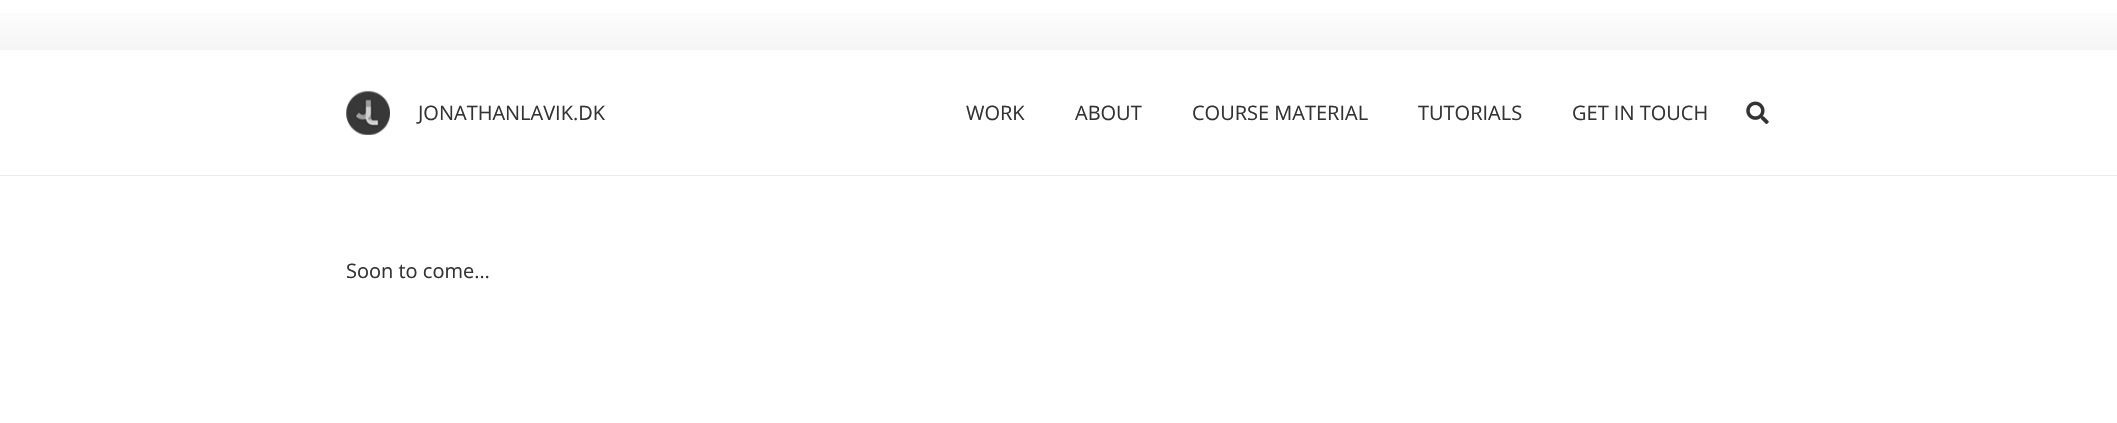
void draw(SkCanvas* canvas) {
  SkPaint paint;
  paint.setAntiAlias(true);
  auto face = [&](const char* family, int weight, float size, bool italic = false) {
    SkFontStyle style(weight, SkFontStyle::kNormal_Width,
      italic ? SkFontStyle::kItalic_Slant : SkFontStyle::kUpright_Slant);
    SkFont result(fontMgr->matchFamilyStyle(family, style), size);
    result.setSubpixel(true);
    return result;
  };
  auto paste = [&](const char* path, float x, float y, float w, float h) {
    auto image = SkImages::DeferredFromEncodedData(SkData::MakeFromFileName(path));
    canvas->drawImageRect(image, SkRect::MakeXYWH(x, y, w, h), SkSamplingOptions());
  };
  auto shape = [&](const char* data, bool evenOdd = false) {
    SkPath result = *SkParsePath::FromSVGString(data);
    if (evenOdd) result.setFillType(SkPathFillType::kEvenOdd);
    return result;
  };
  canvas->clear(0xffffffff);
  {
    const SkColor colors[] = {0xfff5f5f5, 0xffffffff};
    const float stops[] = {0, 1};
    const SkPoint ends[] = {{1059, 50}, {1059, 0}};
    paint.setShader(SkGradientShader::MakeLinear(ends, colors, stops, 2, SkTileMode::kClamp));
    paint.setAlpha(255);
  }
  canvas->drawRect(SkRect::MakeXYWH(0, 13, 2117, 37), paint);
  paint.setShader(nullptr);
  paint.setColor(0xffebebeb);
  canvas->drawPath(shape("M0 175V176H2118V51V175Z"), paint);
  paste("img/1.png", 346, 90, 44, 45);
  paste("img/2.png", 1746, 101, 23, 23);
  auto f0 = face("Open Sans", 400, 20);
  paint.setColor(0xff333333);
  {
    const struct { const char* s; float x, y; } items[] = {
      {"JONATHANLAVIK.DK", 418, 120},
      {"WORK", 966, 120},
      {"ABOUT", 1075, 120},
      {"COURSE MATERIAL", 1192, 120},
      {"TUTORIALS", 1418, 120},
      {"GET IN TOUCH", 1572, 120},
      {"Soon to come…", 346, 278},
    };
    for (auto [s, x, y] : items) {
      canvas->drawString(s, x, y, f0, paint);
    }
  }
}
